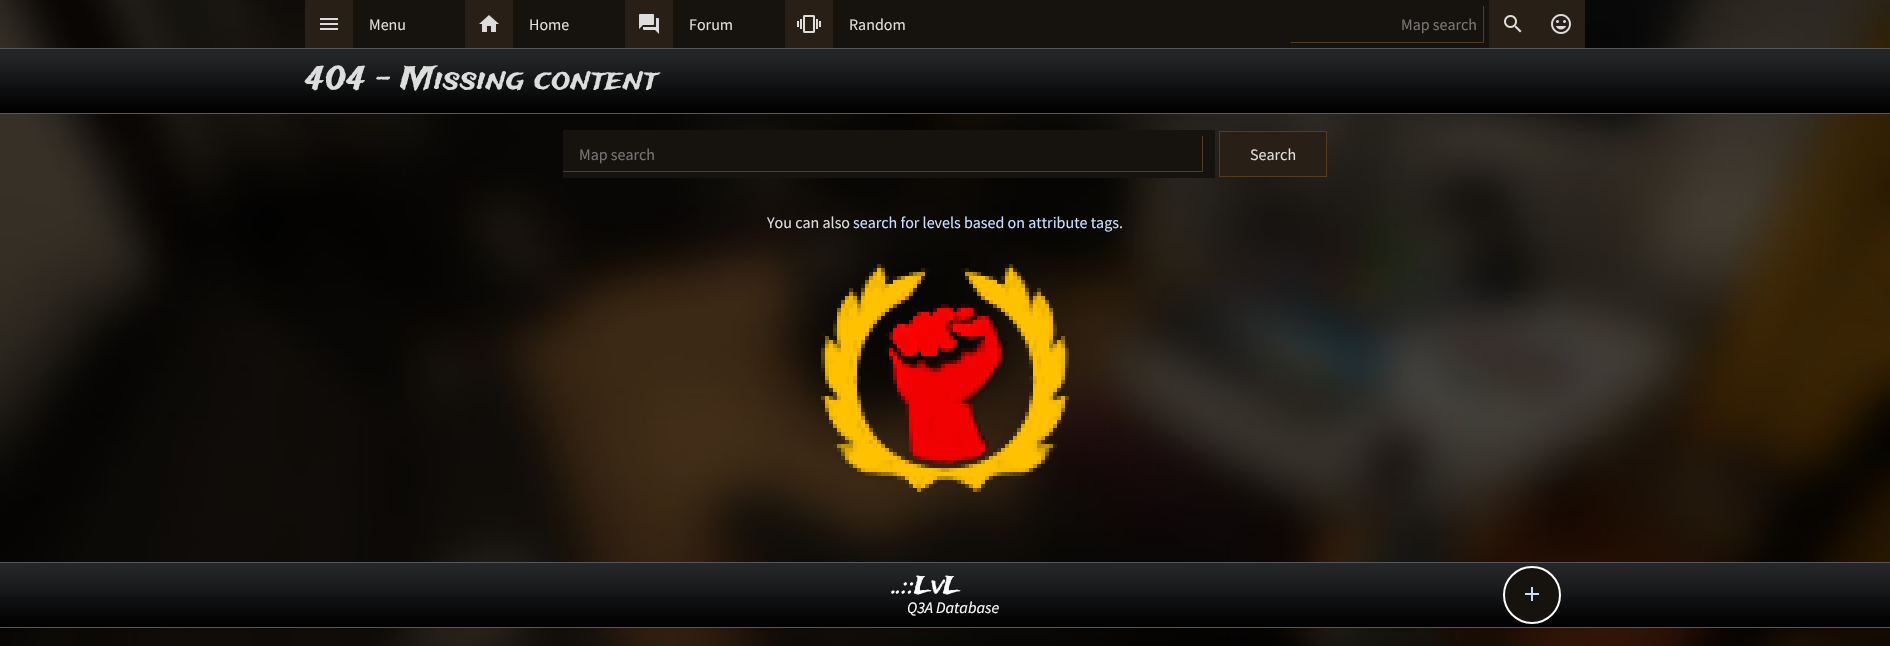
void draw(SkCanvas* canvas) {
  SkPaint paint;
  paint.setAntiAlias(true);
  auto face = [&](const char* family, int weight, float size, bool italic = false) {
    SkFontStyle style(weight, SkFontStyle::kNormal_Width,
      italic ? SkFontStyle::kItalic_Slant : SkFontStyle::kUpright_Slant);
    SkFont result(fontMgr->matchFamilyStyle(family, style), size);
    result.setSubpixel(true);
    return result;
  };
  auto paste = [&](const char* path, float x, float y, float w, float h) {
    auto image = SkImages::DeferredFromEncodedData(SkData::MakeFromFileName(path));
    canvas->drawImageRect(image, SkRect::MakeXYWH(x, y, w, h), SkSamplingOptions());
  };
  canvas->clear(0xffffffff);
  paste("img/1.png", 0, 0, 1890, 646);
  paint.setColor(0xff16130f);
  canvas->drawRect(SkRect::MakeXYWH(353, 0, 1136, 48), paint);
  paint.setColor(0xff282016);
  canvas->drawRect(SkRect::MakeXYWH(305, 0, 48, 48), paint);
  paste("img/2.png", 320, 18, 18, 12);
  canvas->drawRect(SkRect::MakeXYWH(465, 0, 48, 48), paint);
  paste("img/3.png", 479, 15, 20, 17);
  canvas->drawRect(SkRect::MakeXYWH(625, 0, 48, 48), paint);
  paste("img/4.png", 639, 14, 20, 20);
  canvas->drawRect(SkRect::MakeXYWH(785, 0, 48, 48), paint);
  paste("img/5.png", 797, 15, 24, 18);
  {
    const struct { float x, y, w, h; SkColor color; } items[] = {
      {1483, 6, 1, 37, 0xff543c22},
      {1291, 42, 193, 1, 0xff543c22},
      {1489, 0, 96, 48, 0xff282016},
    };
    for (auto [x, y, w, h, color] : items) {
      paint.setColor(color);
      canvas->drawRect(SkRect::MakeXYWH(x, y, w, h), paint);
    }
  }
  paste("img/6.png", 1504, 15, 18, 18);
  paste("img/7.png", 1551, 14, 20, 20);
  paste("img/8.png", 0, 49, 1890, 64);
  {
    const struct { float x, y, w, h; SkColor color; } items[] = {
      {0, 48, 1890, 1, 0xff56585d},
      {0, 113, 1890, 1, 0xff56585d},
      {563, 130, 652, 48, 0xff16130f},
      {1202, 136, 1, 36, 0xff543c22},
      {563, 171, 640, 1, 0xff543c22},
    };
    for (auto [x, y, w, h, color] : items) {
      paint.setColor(color);
      canvas->drawRect(SkRect::MakeXYWH(x, y, w, h), paint);
    }
  }
  paint.setColor(0xff282016);
  canvas->drawRect(SkRect::MakeXYWH(1219.5f, 131.5f, 107, 45), paint);
  paint.setStroke(true);
  paint.setStrokeWidth(1);
  paint.setColor(0xff543c22);
  canvas->drawRect(SkRect::MakeXYWH(1219.5f, 131.5f, 107, 45), paint);
  paste("img/9.png", 821, 264, 248, 228);
  paste("img/8.png", 0, 563, 1890, 64);
  paint.setStroke(false);
  paint.setColor(0xff16130f);
  canvas->drawCircle(1532, 595, 28, paint);
  paint.setStroke(true);
  paint.setStrokeWidth(2);
  paint.setColor(0xffffffff);
  canvas->drawCircle(1532, 595, 28, paint);
  paste("img/10.png", 1525, 587, 14, 14);
  paint.setStroke(false);
  paint.setColor(0xff56585d);
  canvas->drawRect(SkRect::MakeXYWH(0, 562, 1890, 1), paint);
  canvas->drawRect(SkRect::MakeXYWH(0, 627, 1890, 1), paint);
  auto f0 = face("Source Sans Pro", 400, 16);
  paint.setColor(0xffdddddd);
  {
    const struct { const char* s; float x, y; } items[] = {
      {"Menu", 369, 30},
      {"Home", 529, 30},
      {"Forum", 689, 30},
      {"Random", 849, 30},
    };
    for (auto [s, x, y] : items) {
      canvas->drawString(s, x, y, f0, paint);
    }
  }
  paint.setColor(0xff757575);
  canvas->drawString("Map search", 1401, 30, f0, paint);
  auto f1 = face("Trade Winds", 400, 32);
  paint.setColor(0xffdddddd);
  canvas->drawString("404 - Missing content", 305, 89, f1, paint);
  paint.setColor(0xff757575);
  canvas->drawString("Map search", 579, 160, f0, paint);
  paint.setColor(0xffdddddd);
  canvas->drawString("Search", 1250, 160, f0, paint);
  canvas->drawString("You can also", 767, 228, f0, paint);
  paint.setColor(0xffccddff);
  canvas->drawString("search for levels based on attribute tags", 853, 228, f0, paint);
  paint.setColor(0xffdddddd);
  canvas->drawString(".", 1119, 228, f0, paint);
  auto f2 = face("Trade Winds", 400, 24);
  paint.setColor(0xffffffff);
  canvas->drawString("..::LvL", 893, 593, f2, paint);
  auto f3 = face("Source Sans Pro", 400, 16, true);
  canvas->drawString("Q3A Database", 907, 613, f3, paint);
}
